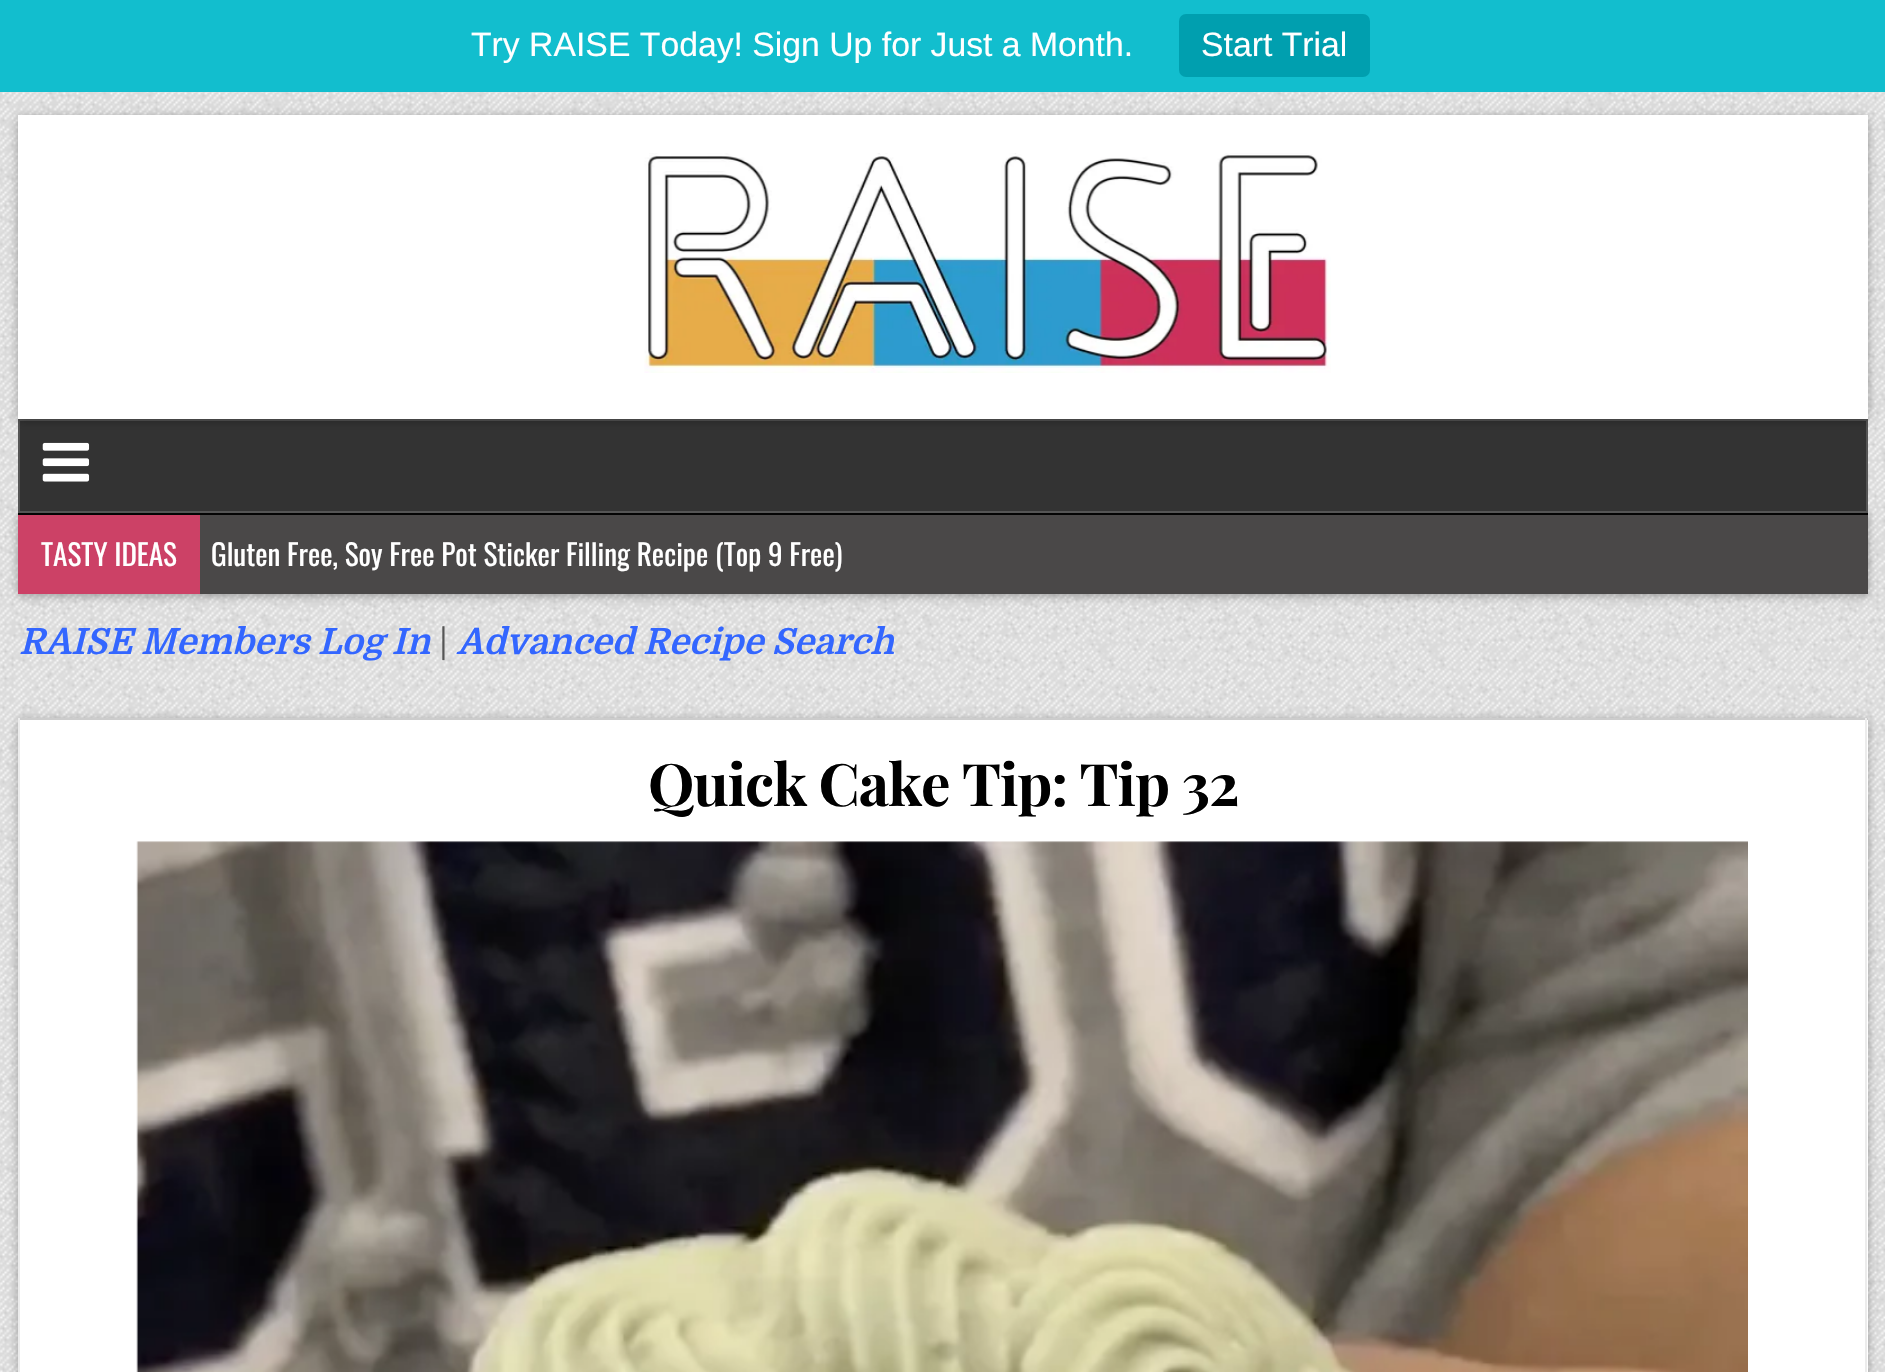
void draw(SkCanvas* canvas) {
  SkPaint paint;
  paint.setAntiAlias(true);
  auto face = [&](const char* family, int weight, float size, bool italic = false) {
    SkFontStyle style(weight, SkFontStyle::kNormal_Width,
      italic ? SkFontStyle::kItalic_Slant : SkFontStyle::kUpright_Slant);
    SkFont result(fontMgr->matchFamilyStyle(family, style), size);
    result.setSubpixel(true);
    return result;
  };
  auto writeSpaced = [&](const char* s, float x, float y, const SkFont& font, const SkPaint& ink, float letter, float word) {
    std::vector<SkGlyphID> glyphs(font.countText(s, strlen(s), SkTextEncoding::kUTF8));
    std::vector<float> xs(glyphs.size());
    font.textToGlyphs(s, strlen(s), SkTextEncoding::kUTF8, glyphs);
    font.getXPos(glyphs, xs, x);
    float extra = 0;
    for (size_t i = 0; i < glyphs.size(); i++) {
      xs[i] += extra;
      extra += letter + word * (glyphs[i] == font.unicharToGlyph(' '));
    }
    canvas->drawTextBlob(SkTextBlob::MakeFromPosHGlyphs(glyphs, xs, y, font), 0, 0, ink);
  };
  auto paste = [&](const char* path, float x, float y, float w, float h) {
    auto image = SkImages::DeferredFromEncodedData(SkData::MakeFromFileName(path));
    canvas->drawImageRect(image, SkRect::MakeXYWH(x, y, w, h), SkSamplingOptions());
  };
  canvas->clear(0xffffffff);
  paste("img/1.png", 0, 92, 1885, 1280);
  paint.setColor(0xff12bece);
  canvas->drawRect(SkRect::MakeXYWH(0, 0, 1885, 92), paint);
  paint.setColor(0xff009faf);
  canvas->drawRoundRect(SkRect::MakeXYWH(1179, 14, 191, 63), 7, 7, paint);
  paint.setColor(0x4d000000);
  paint.setMaskFilter(SkMaskFilter::MakeBlur(kNormal_SkBlurStyle, 4.5f));
  canvas->drawRect(SkRect::MakeXYWH(18, 515, 1850, 81), paint);
  paint.setMaskFilter(nullptr);
  paint.setColor(0xff333333);
  canvas->drawRect(SkRect::MakeXYWH(19, 420, 1848, 92), paint);
  paint.setStroke(true);
  paint.setStrokeWidth(2);
  paint.setColor(0xff555555);
  canvas->drawRect(SkRect::MakeXYWH(19, 420, 1848, 92), paint);
  paint.setStroke(false);
  paint.setColor(0x4d000000);
  paint.setMaskFilter(SkMaskFilter::MakeBlur(kNormal_SkBlurStyle, 4.5f));
  canvas->drawRect(SkRect::MakeXYWH(18, 117, 1850, 304), paint);
  paint.setMaskFilter(nullptr);
  paint.setColor(0xffffffff);
  canvas->drawRect(SkRect::MakeXYWH(18, 115, 1850, 304), paint);
  paste("img/2.png", 644, 153, 687, 220);
  paste("img/3.png", 42, 442, 48, 40);
  {
    const struct { float x, y, w, h; SkColor color; } items[] = {
      {200, 515, 1668, 79, 0xff4a4848},
      {18, 513, 1850, 2, 0xff040404},
      {18, 515, 182, 79, 0xffcc4166},
    };
    for (auto [x, y, w, h, color] : items) {
      paint.setColor(color);
      canvas->drawRect(SkRect::MakeXYWH(x, y, w, h), paint);
    }
  }
  paint.setColor(0x4d000000);
  paint.setMaskFilter(SkMaskFilter::MakeBlur(kNormal_SkBlurStyle, 4.5f));
  canvas->drawRect(SkRect::MakeXYWH(18, 720, 1850, 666), paint);
  paint.setMaskFilter(nullptr);
  {
    const struct { float x, y, w, h; SkColor color; } items[] = {
      {20, 720, 1848, 652, 0xffffffff},
      {18, 718, 1850, 2, 0xffcccccc},
      {1865, 718, 2, 654, 0xffececec},
      {18, 718, 2, 654, 0xffececec},
    };
    for (auto [x, y, w, h, color] : items) {
      paint.setColor(color);
      canvas->drawRect(SkRect::MakeXYWH(x, y, w, h), paint);
    }
  }
  paste("img/4.png", 136, 841, 1612, 531);
  auto f0 = face("Liberation Sans", 400, 33.75f);
  paint.setColor(0xffffffff);
  canvas->drawString("Try RAISE Today! Sign Up for Just a Month.", 471, 56, f0, paint);
  canvas->drawString("Start Trial", 1201, 56, f0, paint);
  auto f1 = face("Oswald", 400, 29.25f);
  canvas->drawString("TASTY IDEAS", 41, 566, f1, paint);
  canvas->drawString("Gluten Free, Soy Free Pot Sticker Filling Recipe (Top 9 Free)", 211, 566, f1, paint);
  auto f2 = face("Domine", 700, 36, true);
  paint.setColor(0xff3366ff);
  canvas->drawString("RAISE Members Log In", 19, 654, f2, paint);
  auto f3 = face("Domine", 400, 36);
  paint.setColor(0xff555555);
  canvas->drawString("|", 439, 654, f3, paint);
  paint.setColor(0xff3366ff);
  canvas->drawString("Advanced Recipe Search", 457, 654, f2, paint);
  auto f4 = face("Playfair Display", 700, 58.5f);
  paint.setColor(0xff000000);
  writeSpaced("Quick Cake Tip: Tip 32", 648, 806, f4, paint, -1.1f, 0);
}
